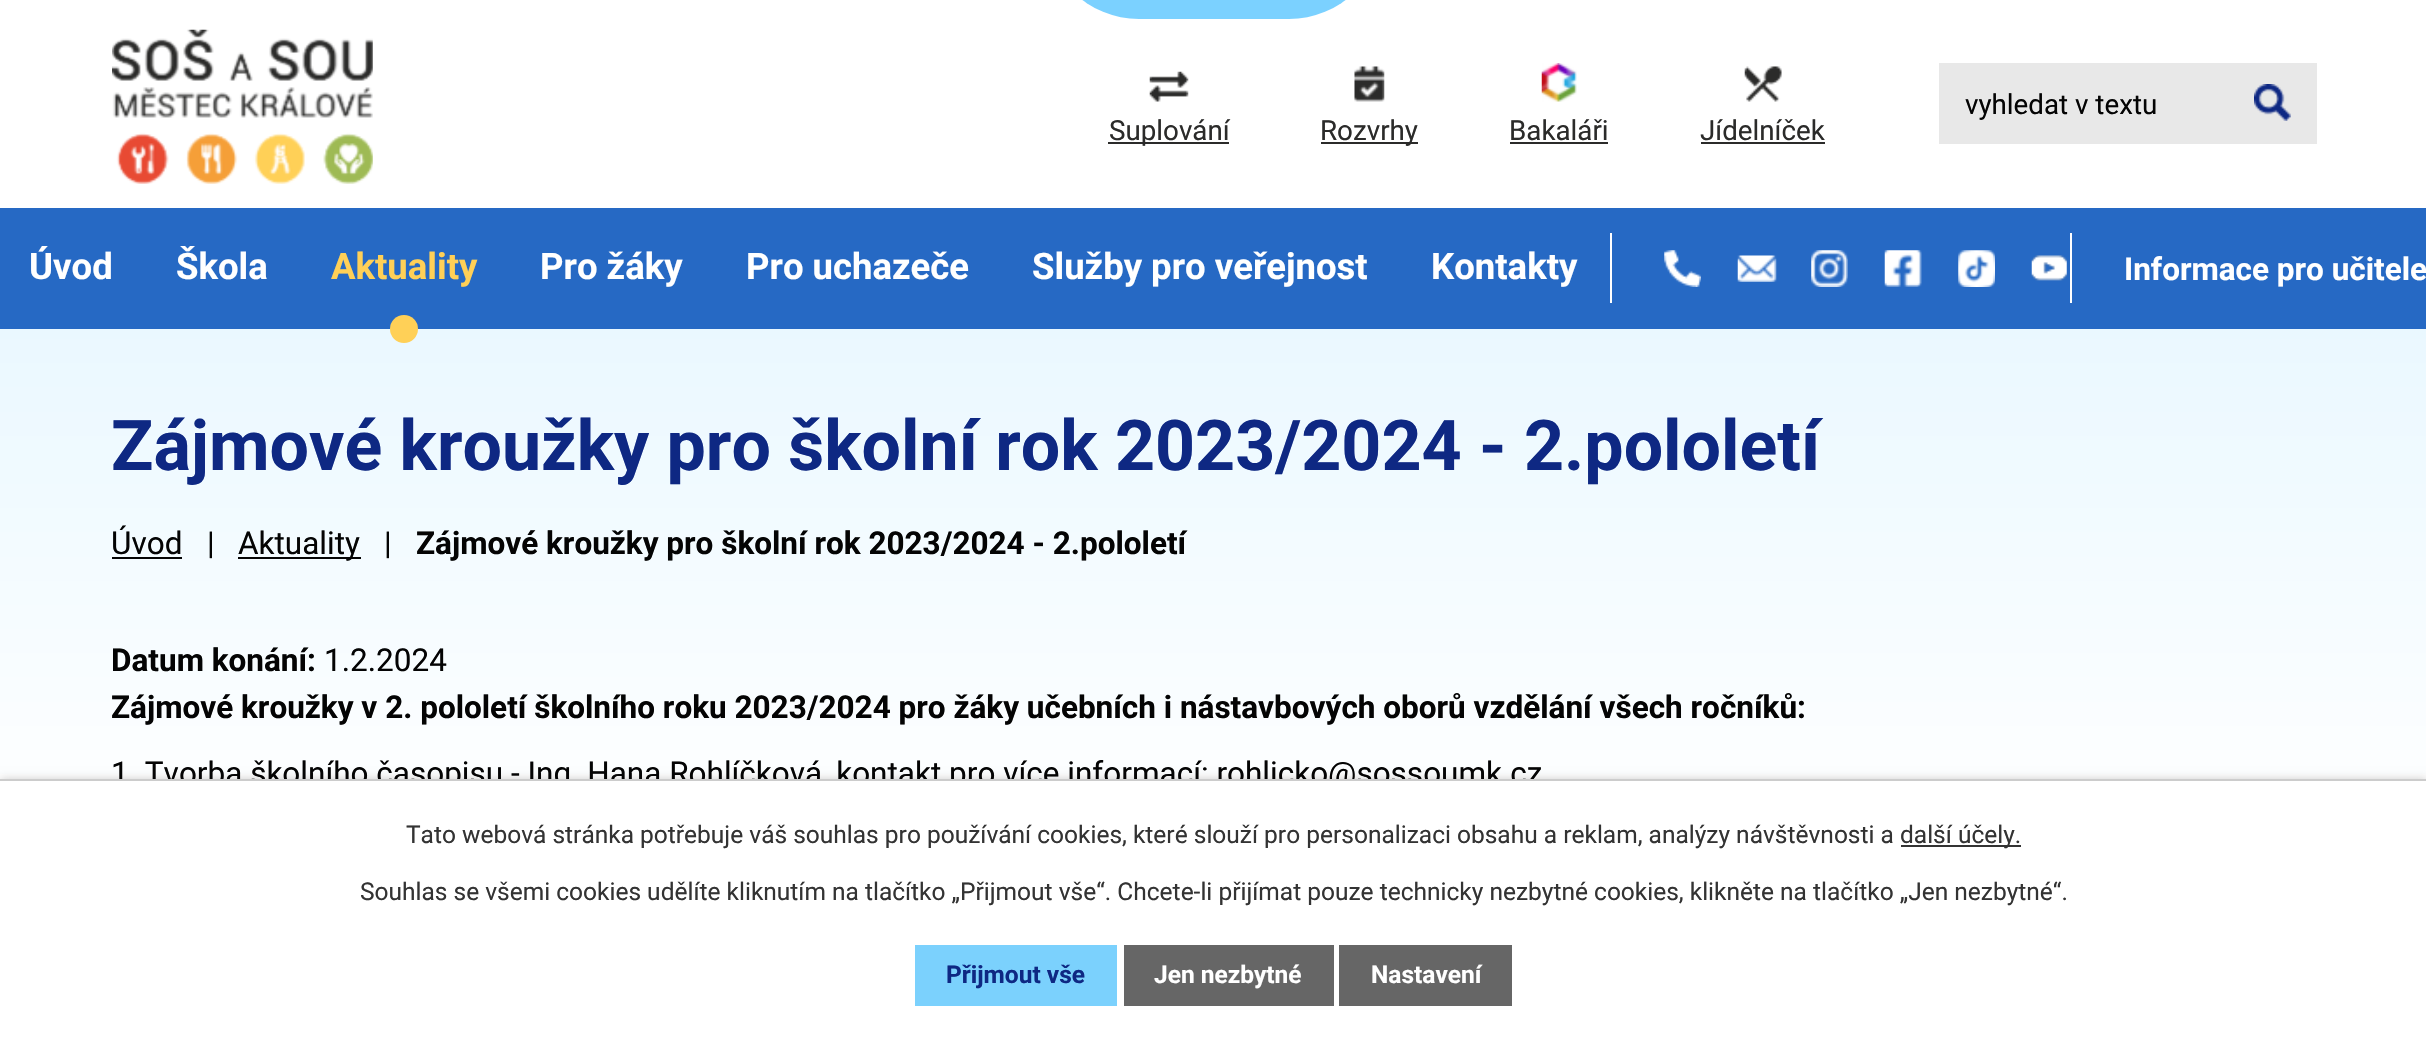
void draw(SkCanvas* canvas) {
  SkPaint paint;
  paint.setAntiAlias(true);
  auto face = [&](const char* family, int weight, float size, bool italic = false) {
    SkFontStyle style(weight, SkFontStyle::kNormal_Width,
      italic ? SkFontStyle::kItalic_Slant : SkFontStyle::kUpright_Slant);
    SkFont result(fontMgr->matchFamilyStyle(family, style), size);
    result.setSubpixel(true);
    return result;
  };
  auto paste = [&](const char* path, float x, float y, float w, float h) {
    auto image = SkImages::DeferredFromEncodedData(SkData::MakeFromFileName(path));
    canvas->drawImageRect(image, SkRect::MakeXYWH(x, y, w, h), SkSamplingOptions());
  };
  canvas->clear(0xffffffff);
  paint.setColor(0xff7bd1ff);
  canvas->drawRoundRect(SkRect::MakeXYWH(1045, -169, 338, 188), 168.5f, 168.5f, paint);
  paste("img/1.png", 112, 29, 261, 155);
  paint.setColor(0xffe8e8e8);
  canvas->drawRect(SkRect::MakeXYWH(1939, 63, 378, 81), paint);
  paste("img/2.png", 2254, 84, 37, 37);
  paste("img/3.png", 1149, 71, 40, 31);
  paint.setColor(0xff2b2b2a);
  canvas->drawRect(SkRect::MakeXYWH(1108, 142, 121, 2), paint);
  paste("img/4.png", 1354, 66, 31, 36);
  canvas->drawRect(SkRect::MakeXYWH(1321, 142, 97, 2), paint);
  paste("img/5.png", 1541, 63, 36, 39);
  canvas->drawRect(SkRect::MakeXYWH(1510, 142, 98, 2), paint);
  paste("img/6.png", 1744, 66, 38, 36);
  canvas->drawRect(SkRect::MakeXYWH(1701, 142, 124, 2), paint);
  paint.setColor(0xff2669c4);
  canvas->drawRect(SkRect::MakeXYWH(0, 208, 2426, 121), paint);
  {
    const SkColor colors[] = {0xffeaf8ff, 0xffffffff};
    const float stops[] = {0, 0.26f};
    const SkPoint ends[] = {{1214, 327}, {1214, 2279}};
    paint.setShader(SkGradientShader::MakeLinear(ends, colors, stops, 2, SkTileMode::kClamp));
    paint.setAlpha(255);
  }
  canvas->drawRect(SkRect::MakeXYWH(0, 329, 2426, 445), paint);
  paint.setShader(nullptr);
  paint.setColor(0xffffd057);
  canvas->drawCircle(404, 329, 14, paint);
  paint.setColor(0xffffffff);
  canvas->drawRect(SkRect::MakeXYWH(1610, 233, 2, 70), paint);
  paste("img/7.png", 1664, 250, 37, 37);
  paste("img/8.png", 1737, 255, 40, 27);
  paste("img/9.png", 1811, 250, 37, 37);
  paste("img/10.png", 1884, 250, 38, 37);
  paste("img/11.png", 1958, 250, 37, 37);
  paste("img/12.png", 2031, 255, 36, 26);
  {
    const struct { float x, y, w, h; SkColor color; } items[] = {
      {2070, 233, 2, 70, 0xffffffff},
      {112, 557, 70, 2, 0xff040404},
      {238, 557, 123, 2, 0xff040404},
    };
    for (auto [x, y, w, h, color] : items) {
      paint.setColor(color);
      canvas->drawRect(SkRect::MakeXYWH(x, y, w, h), paint);
    }
  }
  paint.setColor(0x33000000);
  paint.setMaskFilter(SkMaskFilter::MakeBlur(kNormal_SkBlurStyle, 4.5f));
  canvas->drawRect(SkRect::MakeXYWH(0, 779, 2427, 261), paint);
  paint.setMaskFilter(nullptr);
  auto f0 = face("Roboto", 400, 27.75f);
  paint.setColor(0xff040404);
  canvas->drawString("vyhledat v textu", 1965, 114, f0, paint);
  paint.setColor(0xff2b2b2a);
  {
    const struct { const char* s; float x, y; } items[] = {
      {"Suplování", 1109, 140},
      {"Rozvrhy", 1320, 140},
      {"Bakaláři", 1509, 140},
      {"Jídelníček", 1700, 140},
    };
    for (auto [s, x, y] : items) {
      canvas->drawString(s, x, y, f0, paint);
    }
  }
  auto f1 = face("Roboto", 700, 36.5f);
  paint.setColor(0xffffffff);
  canvas->drawString("Úvod", 29, 279, f1, paint);
  canvas->drawString("Škola", 176, 279, f1, paint);
  paint.setColor(0xffffd057);
  canvas->drawString("Aktuality", 331, 279, f1, paint);
  paint.setColor(0xffffffff);
  {
    const struct { const char* s; float x, y; } items[] = {
      {"Pro žáky", 540, 279},
      {"Pro uchazeče", 746, 279},
      {"Služby pro veřejnost", 1032, 279},
      {"Kontakty", 1431, 279},
    };
    for (auto [s, x, y] : items) {
      canvas->drawString(s, x, y, f1, paint);
    }
  }
  auto f2 = face("Roboto", 700, 31.5f);
  canvas->drawString("Informace pro učitele", 2124, 280, f2, paint);
  auto f3 = face("Roboto", 700, 69.9f);
  paint.setColor(0xff0e2883);
  canvas->drawString("Zájmové kroužky pro školní rok 2023/2024 - 2.pololetí", 111, 470, f3, paint);
  auto f4 = face("Roboto", 400, 31.5f);
  paint.setColor(0xff040404);
  {
    const struct { const char* s; float x, y; } items[] = {
      {"Úvod", 111, 554},
      {"|", 207, 554},
      {"Aktuality", 238, 554},
      {"|", 384, 554},
    };
    for (auto [s, x, y] : items) {
      canvas->drawString(s, x, y, f4, paint);
    }
  }
  canvas->drawString("Zájmové kroužky pro školní rok 2023/2024 - 2.pololetí", 416, 554, f2, paint);
  canvas->drawString("Datum konání:", 111, 671, f2, paint);
  canvas->drawString("1.2.2024", 324, 671, f4, paint);
  canvas->drawString("Zájmové kroužky v 2. pololetí školního roku 2023/2024 pro žáky učebních i nástavbových oborů vzdělání všech ročníků:", 111, 718, f2, paint);
  canvas->drawString("1. Tvorba školního časopisu - Ing. Hana Rohlíčková, kontakt pro více informací: rohlicko@sossoumk.cz", 111, 784, f4, paint);
  paint.setColor(0xffffffff);
  canvas->drawRect(SkRect::MakeXYWH(0, 781, 2426, 257), paint);
  paint.setColor(0xffcccccc);
  canvas->drawRect(SkRect::MakeXYWH(0, 779, 2426, 2), paint);
  auto f5 = face("Roboto", 400, 24.5f);
  paint.setColor(0xff333333);
  canvas->drawString("Tato webová stránka potřebuje váš souhlas pro používání cookies, které slouží pro personalizaci obsahu a reklam, analýzy návštěvnosti a", 406, 843, f5, paint);
  canvas->drawRect(SkRect::MakeXYWH(1901, 845, 120, 2), paint);
  canvas->drawString("další účely.", 1900, 843, f5, paint);
  canvas->drawString("Souhlas se všemi cookies udělíte kliknutím na tlačítko „Přijmout vše“. Chcete-li přijímat pouze technicky nezbytné cookies, klikněte na tlačítko „Jen nezbytné“.", 360, 900, f5, paint);
  paint.setColor(0xff7bd1fd);
  canvas->drawRect(SkRect::MakeXYWH(915, 945, 202, 61), paint);
  auto f6 = face("Roboto", 700, 24.5f);
  paint.setColor(0xff0e2883);
  canvas->drawString("Přijmout vše", 946, 983, f6, paint);
  paint.setColor(0xff666666);
  canvas->drawRect(SkRect::MakeXYWH(1124, 945, 210, 61), paint);
  paint.setColor(0xffffffff);
  canvas->drawString("Jen nezbytné", 1154, 983, f6, paint);
  paint.setColor(0xff666666);
  canvas->drawRect(SkRect::MakeXYWH(1339, 945, 173, 61), paint);
  paint.setColor(0xffffffff);
  canvas->drawString("Nastavení", 1371, 983, f6, paint);
}
